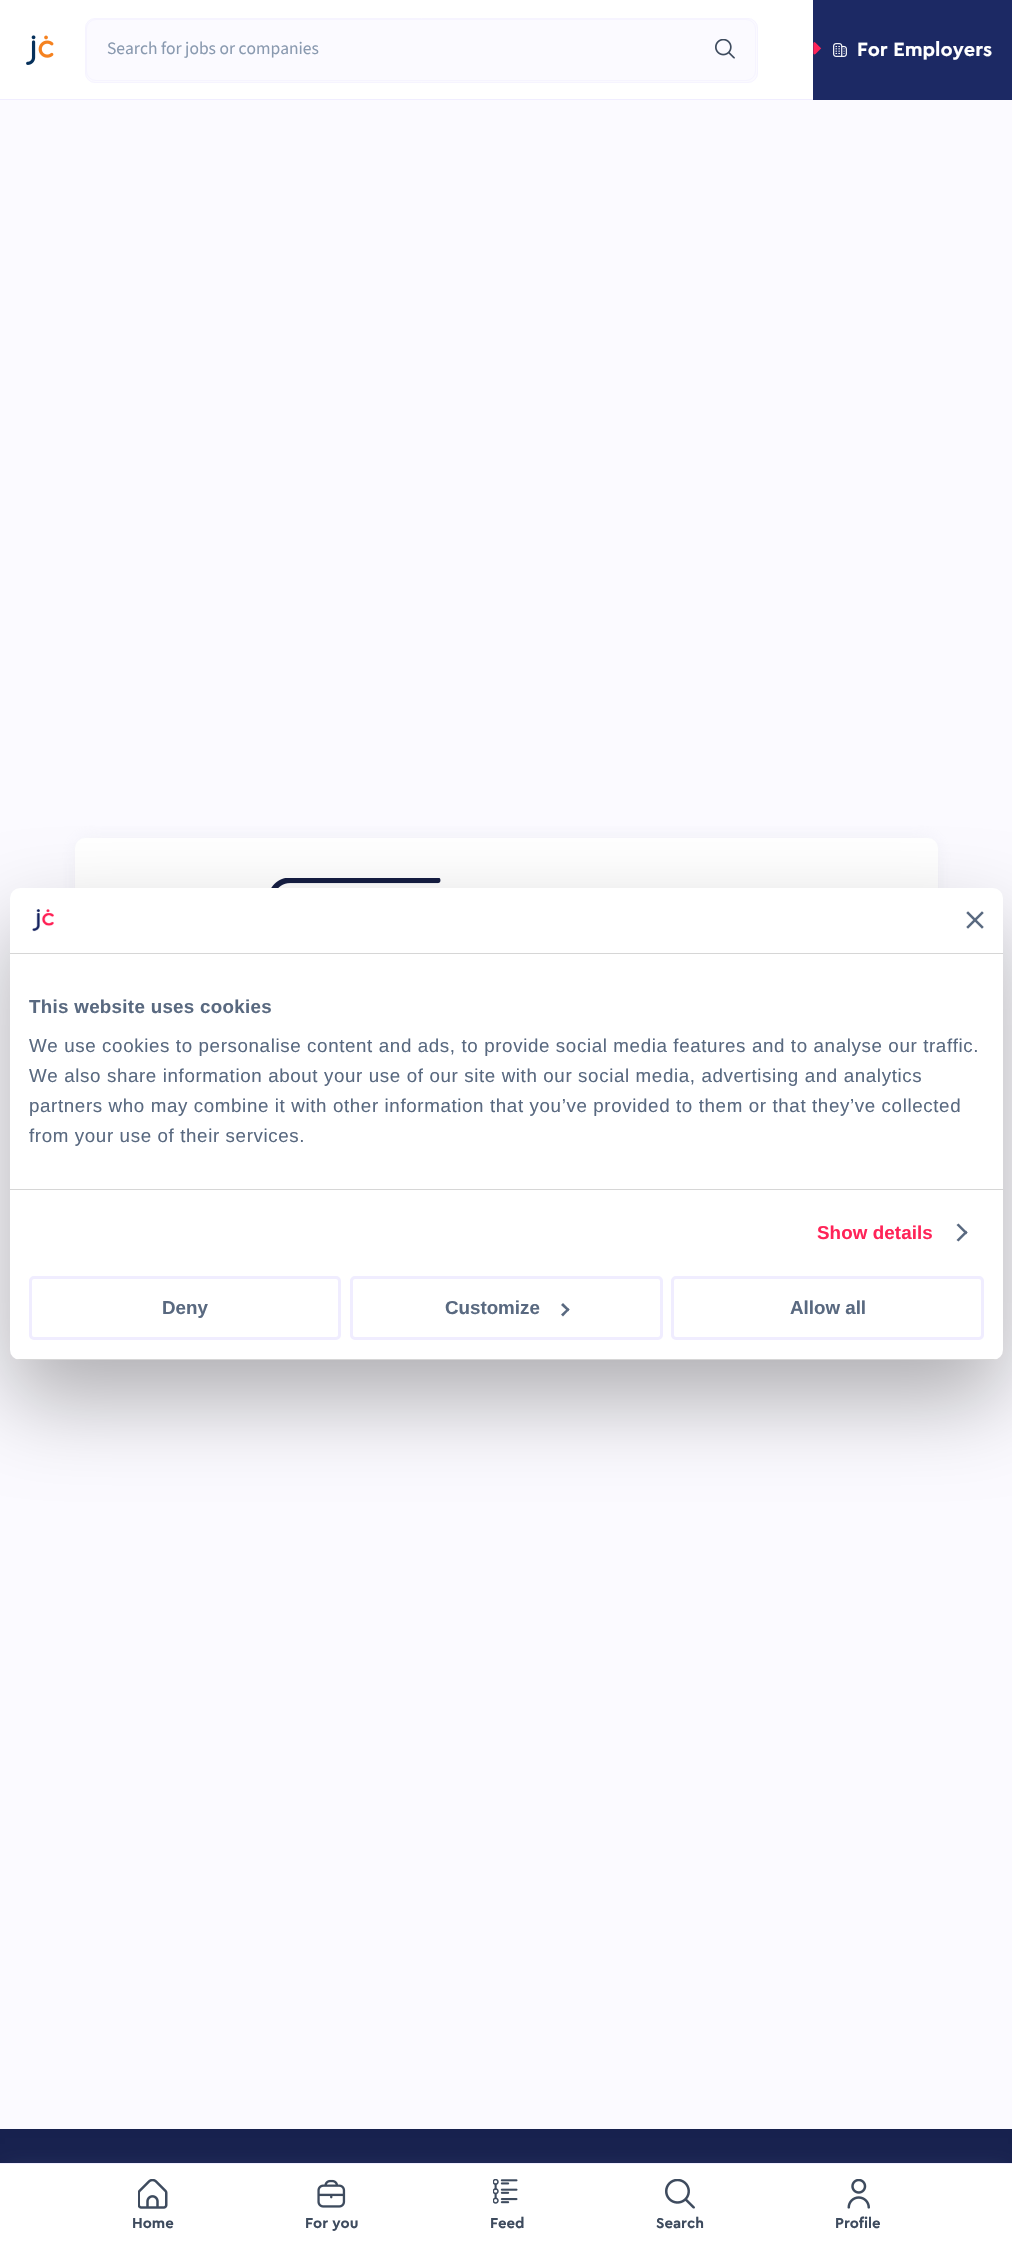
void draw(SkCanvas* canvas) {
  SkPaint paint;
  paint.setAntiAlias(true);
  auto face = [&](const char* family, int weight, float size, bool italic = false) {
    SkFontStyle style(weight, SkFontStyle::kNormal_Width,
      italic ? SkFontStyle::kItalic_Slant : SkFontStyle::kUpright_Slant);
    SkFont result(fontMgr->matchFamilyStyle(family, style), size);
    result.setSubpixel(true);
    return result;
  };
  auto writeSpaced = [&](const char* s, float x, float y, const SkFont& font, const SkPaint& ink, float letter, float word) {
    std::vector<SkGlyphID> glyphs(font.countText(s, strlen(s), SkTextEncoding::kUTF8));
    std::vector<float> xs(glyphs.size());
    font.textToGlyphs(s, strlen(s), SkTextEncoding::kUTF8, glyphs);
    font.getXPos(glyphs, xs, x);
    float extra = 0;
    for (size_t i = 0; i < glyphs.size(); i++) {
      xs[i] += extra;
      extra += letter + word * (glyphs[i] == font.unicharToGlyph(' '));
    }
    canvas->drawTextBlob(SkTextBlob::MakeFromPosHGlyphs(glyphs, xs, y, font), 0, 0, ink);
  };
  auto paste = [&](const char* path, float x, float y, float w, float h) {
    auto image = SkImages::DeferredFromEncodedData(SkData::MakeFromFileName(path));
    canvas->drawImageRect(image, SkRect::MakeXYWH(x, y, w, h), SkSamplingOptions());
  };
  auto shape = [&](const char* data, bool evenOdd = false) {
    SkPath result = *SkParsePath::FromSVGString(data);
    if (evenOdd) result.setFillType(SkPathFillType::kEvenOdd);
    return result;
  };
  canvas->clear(0xfffbfaff);
  paint.setColor(0xffffffff);
  canvas->drawRect(SkRect::MakeXYWH(0, 0, 813, 99), paint);
  paint.setColor(0xfff0edff);
  canvas->drawRect(SkRect::MakeXYWH(0, 99, 813, 1), paint);
  paste("img/1.png", 26, 35, 28, 30);
  paint.setColor(0xfffbfaff);
  canvas->drawRoundRect(SkRect::MakeXYWH(85.5f, 18.5f, 672, 64), 9.5f, 9.5f, paint);
  paint.setStroke(true);
  paint.setStrokeWidth(1);
  paint.setColor(0xfff6f4ff);
  canvas->drawRoundRect(SkRect::MakeXYWH(85.5f, 18.5f, 672, 64), 9.5f, 9.5f, paint);
  canvas->drawRoundRect(SkRect::MakeXYWH(86.5f, 19.5f, 669, 61), 9.5f, 9.5f, paint);
  paste("img/2.png", 715, 39, 20, 20);
  paint.setStroke(false);
  paint.setColor(0xff1c2964);
  canvas->drawRect(SkRect::MakeXYWH(813, 0, 199, 100), paint);
  paste("img/3.png", 813, 42, 9, 13);
  paste("img/4.png", 833, 43, 14, 14);
  paint.setColor(0x99dfe0e9);
  paint.setMaskFilter(SkMaskFilter::MakeBlur(kNormal_SkBlurStyle, 10));
  canvas->drawRoundRect(SkRect::MakeXYWH(80, 843, 853, 427), 5, 5, paint);
  paint.setMaskFilter(nullptr);
  paint.setColor(0xffffffff);
  canvas->drawRoundRect(SkRect::MakeXYWH(75, 838, 863, 437), 10, 10, paint);
  paste("img/5.png", 271, 878, 170, 10);
  paint.setColor(0xff17214e);
  canvas->drawRect(SkRect::MakeXYWH(0, 2129, 1012, 34), paint);
  paint.setColor(0x338389a9);
  paint.setMaskFilter(SkMaskFilter::MakeBlur(kNormal_SkBlurStyle, 10));
  canvas->drawRect(SkRect::MakeXYWH(5, 2168, 1003, 73), paint);
  paint.setMaskFilter(nullptr);
  paint.setColor(0xffffffff);
  canvas->drawRect(SkRect::MakeXYWH(0, 2164, 1012, 82), paint);
  paint.setColor(0xfff0edff);
  canvas->drawRect(SkRect::MakeXYWH(0, 2163, 1012, 1), paint);
  paste("img/6.png", 138, 2179, 30, 30);
  paste("img/7.png", 317, 2179, 29, 29);
  paste("img/8.png", 493, 2179, 25, 25);
  paste("img/9.png", 665, 2179, 30, 30);
  paste("img/10.png", 847, 2179, 23, 30);
  paint.setColor(0x4d000000);
  paint.setMaskFilter(SkMaskFilter::MakeBlur(kNormal_SkBlurStyle, 42.5f));
  canvas->drawRoundRect(SkRect::MakeXYWH(10, 928, 993, 472), 10, 10, paint);
  paint.setMaskFilter(nullptr);
  paint.setColor(0xffffffff);
  canvas->drawRoundRect(SkRect::MakeXYWH(10, 888, 993, 472), 10, 10, paint);
  paint.setColor(0xffd6d6d6);
  canvas->drawRect(SkRect::MakeXYWH(10, 953, 993, 1), paint);
  paste("img/11.png", 32, 909, 22, 23);
  paste("img/12.png", 966, 911, 18, 18);
  canvas->drawRect(SkRect::MakeXYWH(10, 1189, 993, 1), paint);
  paint.setColor(0xff596980);
  canvas->drawPath(shape("M958.5 1223.5L967.5 1232.5L966 1234.5L956.5 1225Z"), paint);
  canvas->drawPath(shape("M966 1230.5L967.5 1232.5L958.5 1241.5L956.5 1240Z"), paint);
  canvas->save();
  canvas->clipPath(shape("M20 888H993C998.5 888 1003 892.5 1003 898V1350C1003 1355.5 998.5 1360 993 1360H20C14.5 1360 10 1355.5 10 1350V898C10 892.5 14.5 888 20 888Z"), true);
  paint.setColor(0xffd6d6d6);
  canvas->drawRect(SkRect::MakeXYWH(10, 1359, 993, 1), paint);
  canvas->restore();
  paint.setStroke(true);
  paint.setStrokeWidth(3);
  paint.setColor(0xfff0edff);
  canvas->drawRoundRect(SkRect::MakeXYWH(30.5f, 1277.5f, 309, 61), 3.5f, 3.5f, paint);
  canvas->drawRoundRect(SkRect::MakeXYWH(351.5f, 1277.5f, 310, 61), 3.5f, 3.5f, paint);
  paint.setStroke(false);
  paint.setColor(0xff596980);
  canvas->drawPath(shape("M563 1303L569.5 1309.5L568 1311.5L561 1305Z"), paint);
  canvas->drawPath(shape("M568 1308L569.5 1309.5L563 1316.5L561 1314.5Z"), paint);
  paint.setStroke(true);
  paint.setColor(0xfff0edff);
  canvas->drawRoundRect(SkRect::MakeXYWH(672.5f, 1277.5f, 310, 61), 3.5f, 3.5f, paint);
  auto f0 = face("Source Sans 3", 400, 17.5f);
  paint.setStroke(false);
  paint.setColor(0xff8999af);
  canvas->drawString("Search for jobs or companies", 107, 54, f0, paint);
  auto f1 = face("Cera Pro", 700, 20);
  paint.setColor(0xffffffff);
  canvas->drawString("For Employers", 857, 56, f1, paint);
  auto f2 = face("Cera Pro", 700, 15);
  paint.setColor(0xff3e4b5e);
  {
    const struct { const char* s; float x, y; } items[] = {
      {"Home", 132, 2228},
      {"For you", 305, 2228},
      {"Feed", 490, 2228},
      {"Search", 656, 2228},
      {"Profile", 835, 2228},
    };
    for (auto [s, x, y] : items) {
      canvas->drawString(s, x, y, f2, paint);
    }
  }
  auto f3 = face("Liberation Sans", 700, 18.75f);
  paint.setColor(0xff596980);
  writeSpaced("This website uses cookies", 29, 1013, f3, paint, 0.3f, 0);
  auto f4 = face("Liberation Sans", 400, 18.75f);
  {
    const struct { const char* s; float x, y; } items[] = {
      {"We use cookies to personalise content and ads, to provide social media features and to analyse our traffic.", 29, 1052},
      {"We also share information about your use of our site with our social media, advertising and analytics", 29, 1082},
      {"partners who may combine it with other information that you’ve provided to them or that they’ve collected", 29, 1112},
      {"from your use of their services.", 29, 1142},
    };
    for (auto [s, x, y] : items) {
      writeSpaced(s, x, y, f4, paint, 0.62f, 0);
    }
  }
  paint.setColor(0xffff2458);
  writeSpaced("Show details", 817, 1239, f3, paint, 0.1f, 0);
  paint.setColor(0xff596980);
  {
    const struct { const char* s; float x, y; } items[] = {
      {"Deny", 162, 1314},
      {"Customize", 445, 1314},
      {"Allow all", 790, 1314},
    };
    for (auto [s, x, y] : items) {
      canvas->drawString(s, x, y, f3, paint);
    }
  }
}
